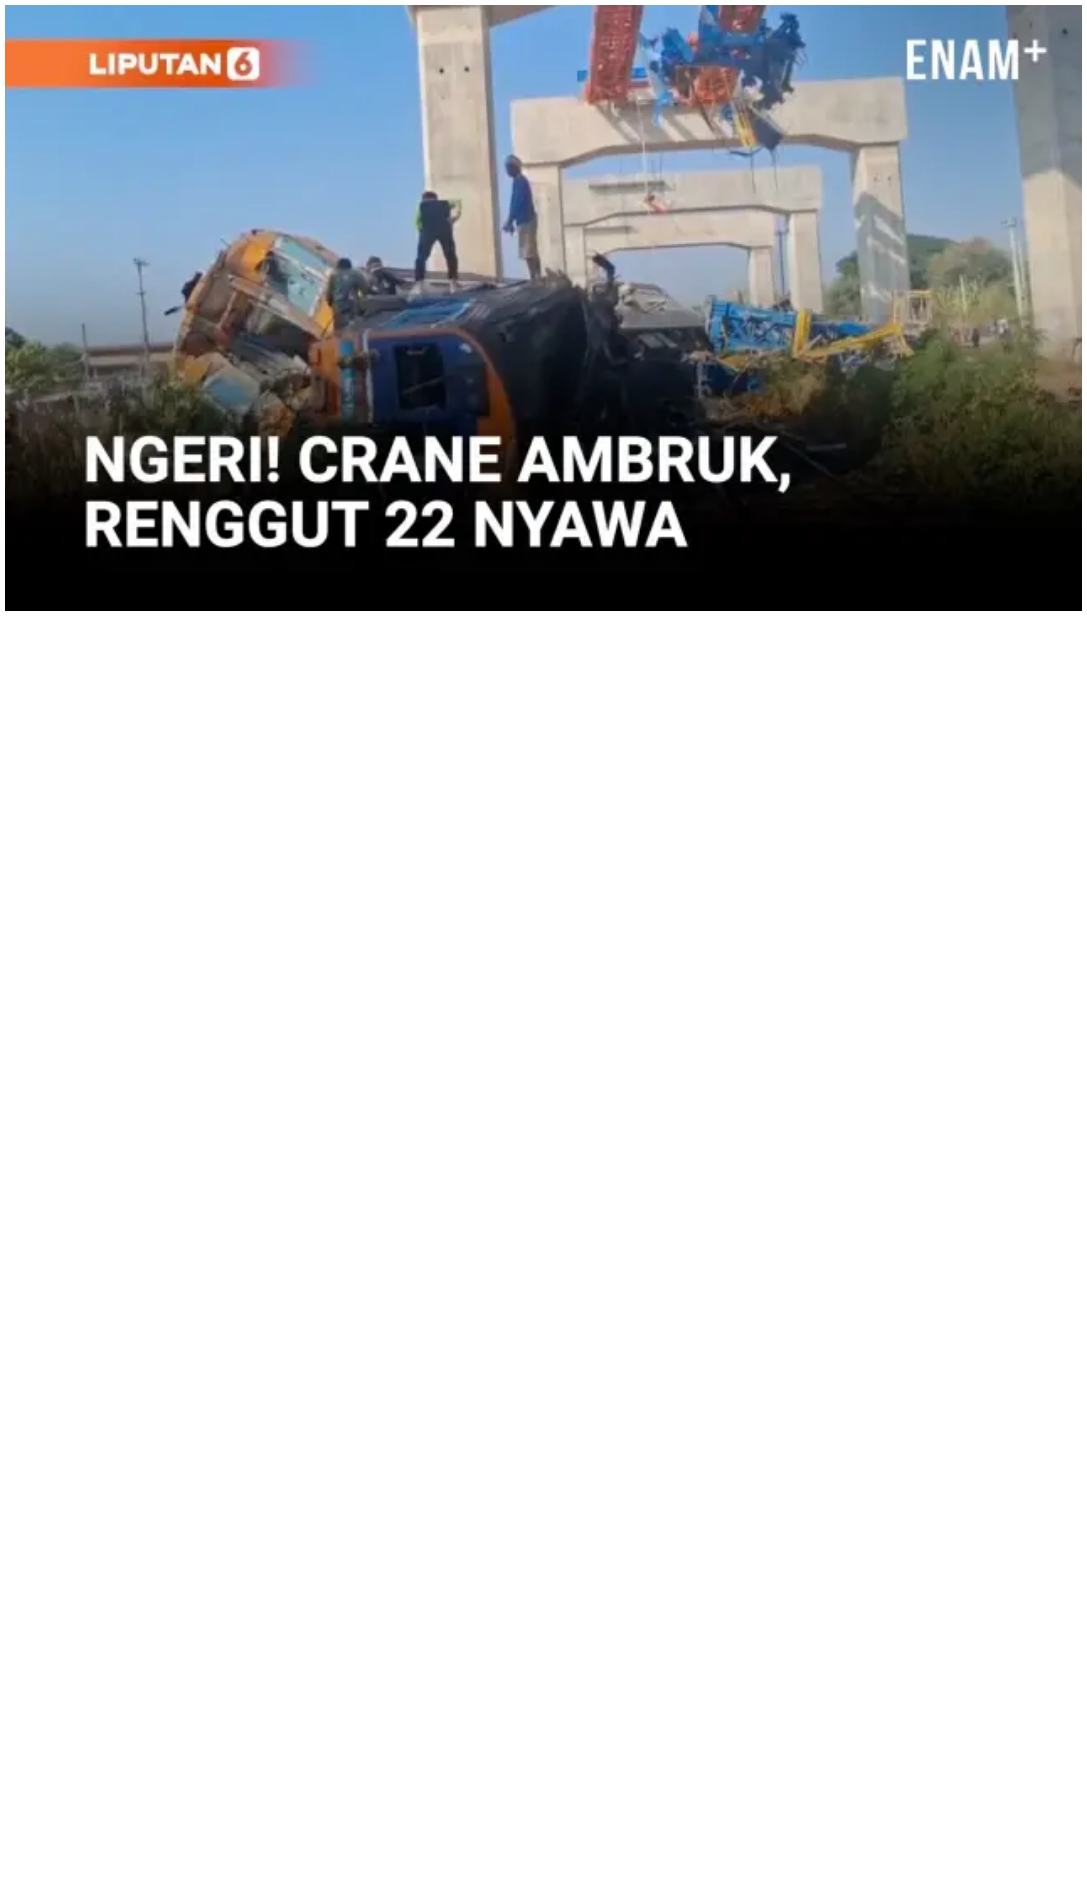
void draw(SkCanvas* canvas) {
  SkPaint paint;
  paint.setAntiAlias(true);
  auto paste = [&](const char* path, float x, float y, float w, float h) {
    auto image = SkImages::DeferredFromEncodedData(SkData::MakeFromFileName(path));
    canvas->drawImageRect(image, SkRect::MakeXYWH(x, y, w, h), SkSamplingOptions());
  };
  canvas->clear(0xffffffff);
  paste("img/1.png", 5, 5, 1077, 606);
}
